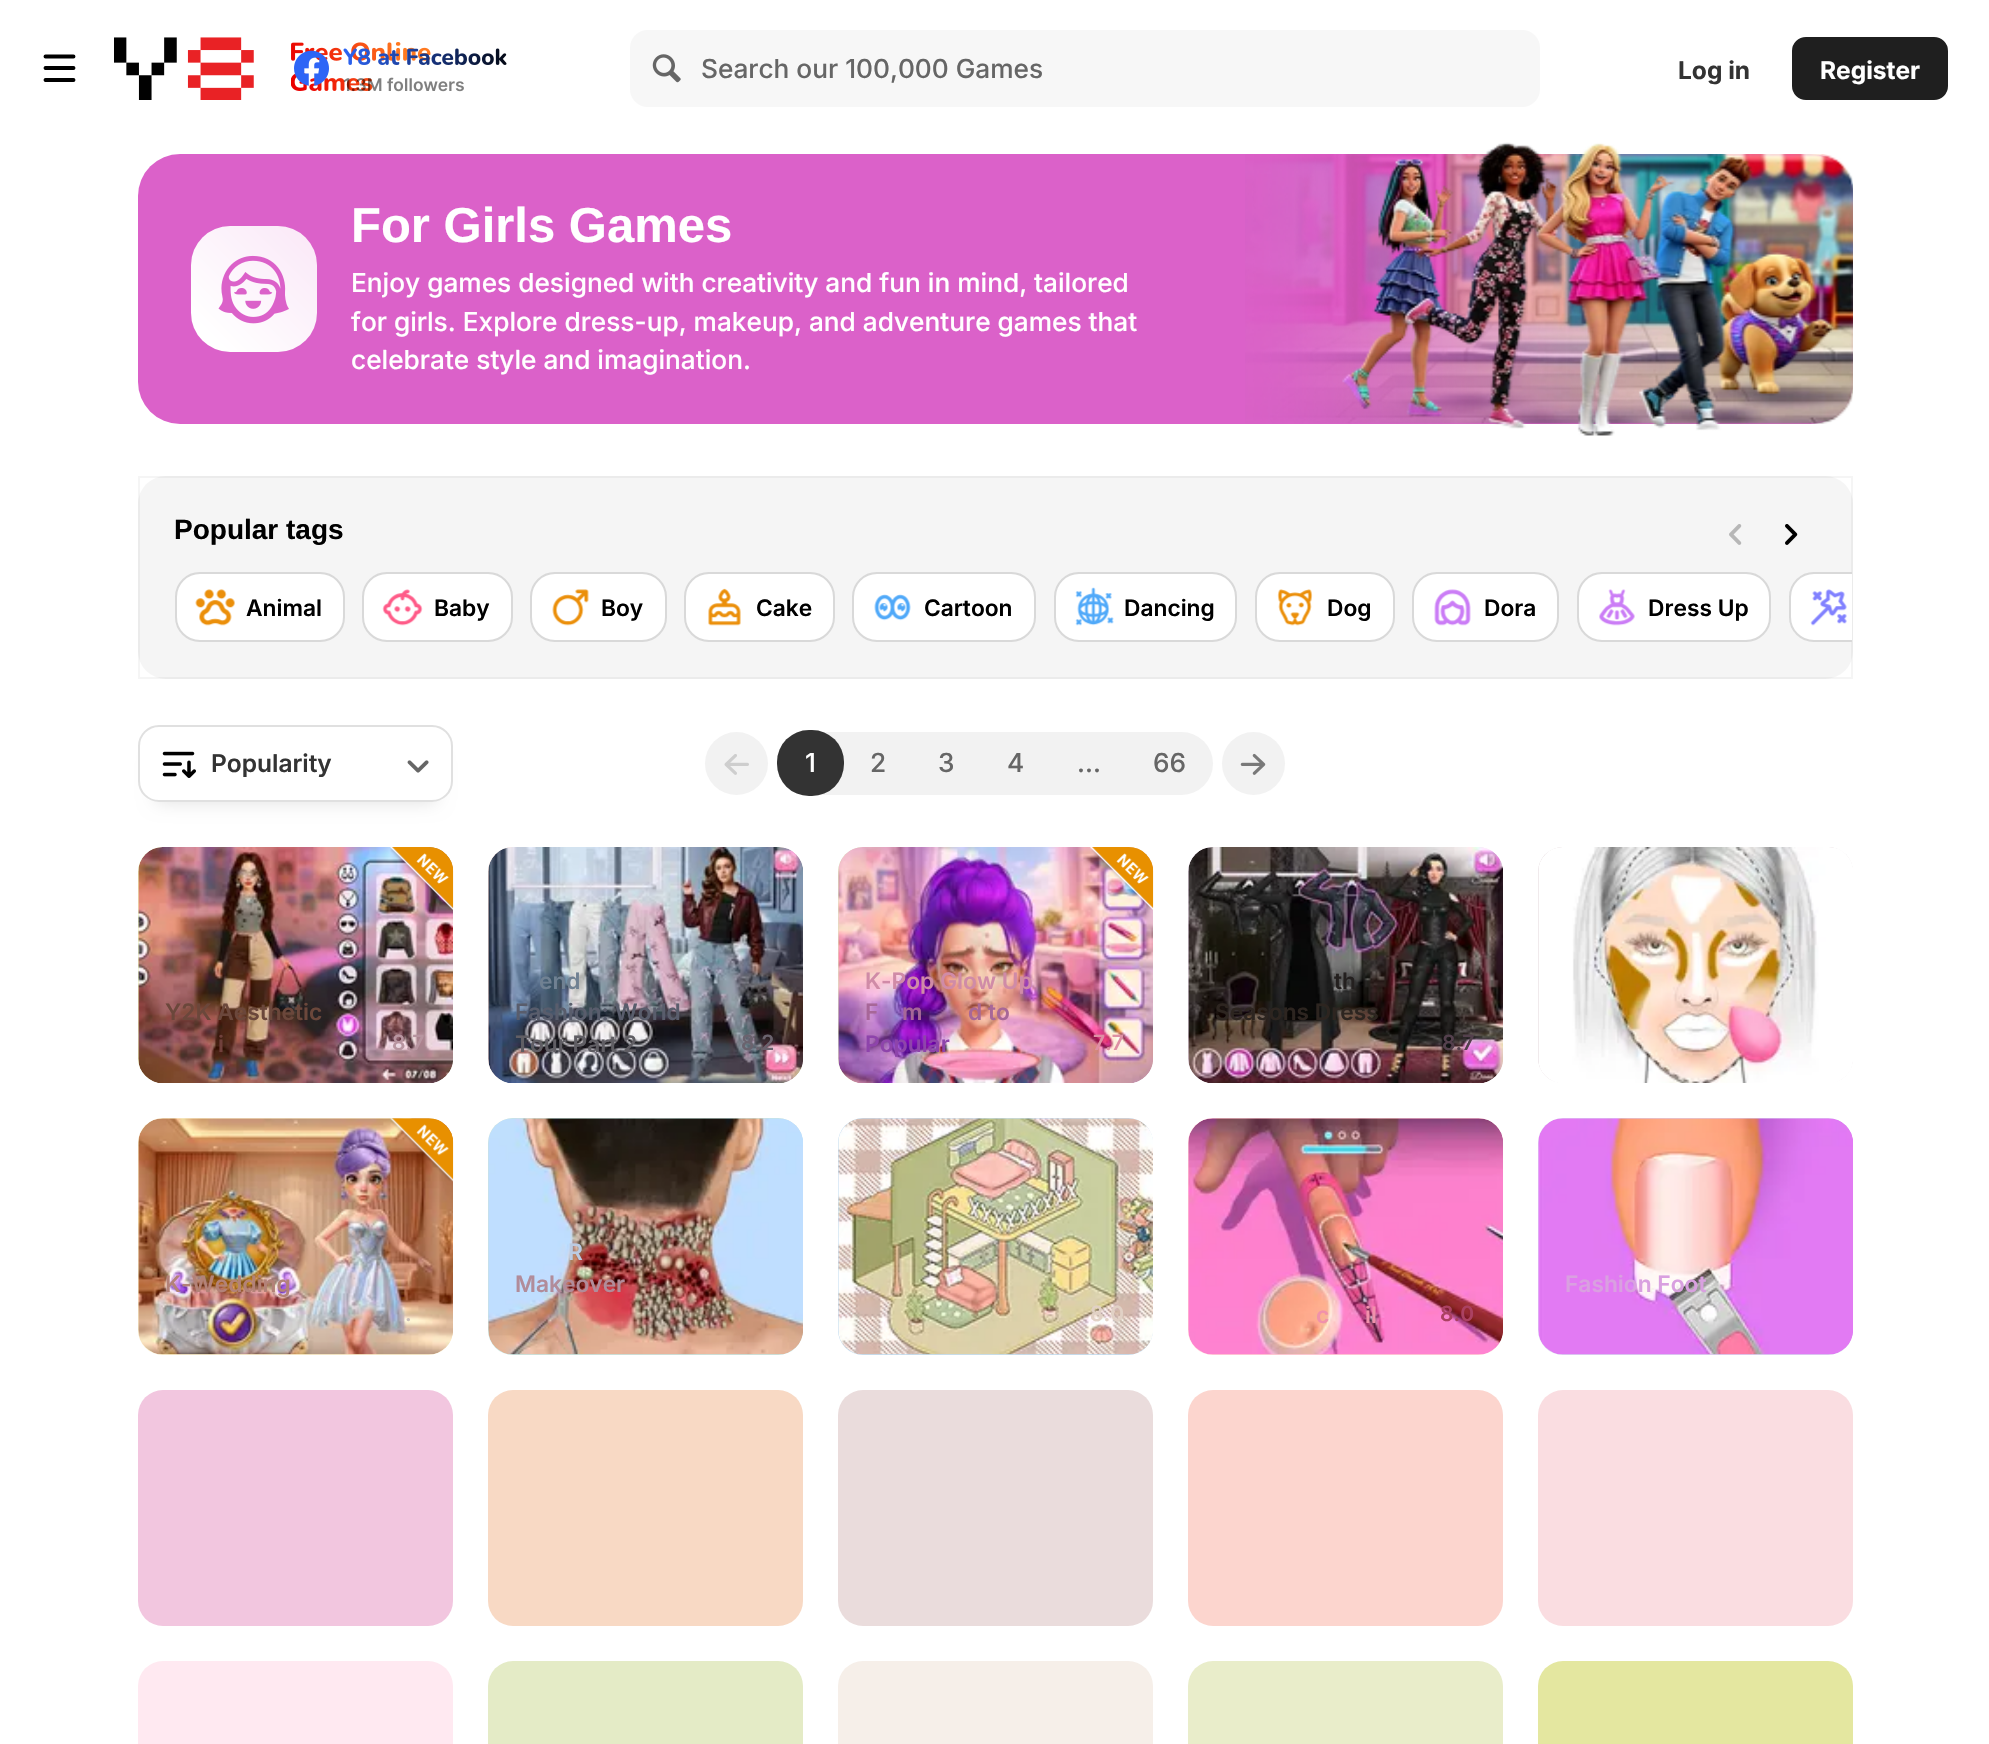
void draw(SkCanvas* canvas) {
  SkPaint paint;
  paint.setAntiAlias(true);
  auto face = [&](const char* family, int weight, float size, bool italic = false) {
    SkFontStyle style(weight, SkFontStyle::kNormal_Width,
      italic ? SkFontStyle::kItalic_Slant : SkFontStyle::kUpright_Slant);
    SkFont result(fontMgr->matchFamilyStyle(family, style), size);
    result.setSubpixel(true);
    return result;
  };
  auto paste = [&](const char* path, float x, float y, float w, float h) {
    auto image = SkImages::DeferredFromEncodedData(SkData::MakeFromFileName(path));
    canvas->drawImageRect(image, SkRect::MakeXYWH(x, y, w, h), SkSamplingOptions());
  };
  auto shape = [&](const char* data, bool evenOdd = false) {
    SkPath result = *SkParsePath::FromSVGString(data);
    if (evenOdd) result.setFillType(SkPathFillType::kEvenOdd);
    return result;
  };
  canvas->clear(0xffffffff);
  paint.setStroke(true);
  paint.setStrokeWidth(3.9f);
  paint.setStrokeCap(SkPaint::kRound_Cap);
  paint.setColor(0xff000000);
  canvas->drawPath(shape("M45.5 56.5H73.5M45.5 68H73.5M73.5 80H45.5"), paint);
  paste("img/1.png", 114, 37, 140, 63);
  paste("img/2.png", 291, 42, 140, 49);
  paste("img/3.png", 294, 48, 213, 44);
  paint.setStroke(false);
  paint.setColor(0xfff7f7f7);
  canvas->drawRoundRect(SkRect::MakeXYWH(630, 30, 910, 77), 18, 18, paint);
  paste("img/4.png", 652, 54, 29, 29);
  paint.setColor(0xff1f1f1f);
  canvas->drawRoundRect(SkRect::MakeXYWH(1793, 38, 154, 61), 13, 13, paint);
  paint.setStroke(true);
  paint.setStrokeWidth(2);
  paint.setStrokeCap(SkPaint::kButt_Cap);
  canvas->drawRoundRect(SkRect::MakeXYWH(1793, 38, 154, 61), 13, 13, paint);
  paint.setStroke(false);
  paint.setColor(0xffdb61c9);
  canvas->drawRoundRect(SkRect::MakeXYWH(138, 154, 1715, 270), 42, 42, paint);
  paste("img/7.png", 1245, 154, 608, 270);
  paste("img/5.png", 1342, 142, 492, 294);
  {
    const SkColor colors[] = {0xffffffff, 0xfffae7f7};
    const float stops[] = {0.14f, 1};
    const SkPoint ends[] = {{191, 352}, {317, 226}};
    paint.setShader(SkGradientShader::MakeLinear(ends, colors, stops, 2, SkTileMode::kClamp));
    paint.setAlpha(255);
  }
  canvas->drawRoundRect(SkRect::MakeXYWH(191, 226, 126, 126), 39, 39, paint);
  paste("img/6.png", 218, 255, 71, 69);
  paint.setShader(nullptr);
  paint.setColor(0xfff5f5f5);
  canvas->drawRoundRect(SkRect::MakeXYWH(138, 476, 1715, 203), 28, 28, paint);
  paint.setStroke(true);
  paint.setColor(0x0a000000);
  canvas->drawRect(SkRect::MakeXYWH(139, 477, 1713, 201), paint);
  paint.setStroke(false);
  paint.setColor(0xffffffff);
  canvas->drawRoundRect(SkRect::MakeXYWH(175, 572, 170, 70), 25, 25, paint);
  paint.setStroke(true);
  paint.setColor(0x26000000);
  canvas->drawRoundRect(SkRect::MakeXYWH(176, 573, 168, 68), 24, 24, paint);
  paste("img/8.png", 195, 589, 40, 37);
  paint.setStroke(false);
  paint.setColor(0xffffffff);
  canvas->drawRoundRect(SkRect::MakeXYWH(362, 572, 151, 70), 25, 25, paint);
  paint.setStroke(true);
  paint.setColor(0x26000000);
  canvas->drawRoundRect(SkRect::MakeXYWH(363, 573, 149, 68), 24, 24, paint);
  paste("img/9.png", 382, 589, 41, 37);
  paint.setStroke(false);
  paint.setColor(0xffffffff);
  canvas->drawRoundRect(SkRect::MakeXYWH(530, 572, 137, 70), 25, 25, paint);
  paint.setStroke(true);
  paint.setColor(0x26000000);
  canvas->drawRoundRect(SkRect::MakeXYWH(531, 573, 135, 68), 24, 24, paint);
  paste("img/10.png", 552, 589, 37, 37);
  paint.setStroke(false);
  paint.setColor(0xffffffff);
  canvas->drawRoundRect(SkRect::MakeXYWH(684, 572, 151, 70), 25, 25, paint);
  paint.setStroke(true);
  paint.setColor(0x26000000);
  canvas->drawRoundRect(SkRect::MakeXYWH(685, 573, 149, 68), 24, 24, paint);
  paste("img/11.png", 708, 588, 33, 38);
  paint.setStroke(false);
  paint.setColor(0xffffffff);
  canvas->drawRoundRect(SkRect::MakeXYWH(852, 572, 184, 70), 25, 25, paint);
  paint.setStroke(true);
  paint.setColor(0x26000000);
  canvas->drawRoundRect(SkRect::MakeXYWH(853, 573, 182, 68), 24, 24, paint);
  paste("img/12.png", 874, 594, 37, 27);
  paint.setStroke(false);
  paint.setColor(0xffffffff);
  canvas->drawRoundRect(SkRect::MakeXYWH(1054, 572, 183, 70), 25, 25, paint);
  paint.setStroke(true);
  paint.setColor(0x26000000);
  canvas->drawRoundRect(SkRect::MakeXYWH(1055, 573, 181, 68), 24, 24, paint);
  paste("img/13.png", 1075, 587, 39, 39);
  paint.setStroke(false);
  paint.setColor(0xffffffff);
  canvas->drawRoundRect(SkRect::MakeXYWH(1255, 572, 140, 70), 25, 25, paint);
  paint.setStroke(true);
  paint.setColor(0x26000000);
  canvas->drawRoundRect(SkRect::MakeXYWH(1256, 573, 138, 68), 24, 24, paint);
  paste("img/14.png", 1277, 589, 36, 37);
  paint.setStroke(false);
  paint.setColor(0xffffffff);
  canvas->drawRoundRect(SkRect::MakeXYWH(1412, 572, 147, 70), 25, 25, paint);
  paint.setStroke(true);
  paint.setColor(0x26000000);
  canvas->drawRoundRect(SkRect::MakeXYWH(1413, 573, 145, 68), 24, 24, paint);
  paste("img/15.png", 1434, 589, 37, 37);
  paint.setStroke(false);
  paint.setColor(0xffffffff);
  canvas->drawRoundRect(SkRect::MakeXYWH(1577, 572, 194, 70), 25, 25, paint);
  paint.setStroke(true);
  paint.setColor(0x26000000);
  canvas->drawRoundRect(SkRect::MakeXYWH(1578, 573, 192, 68), 24, 24, paint);
  paste("img/16.png", 1599, 589, 36, 37);
  paint.setStroke(false);
  paint.setColor(0xffffffff);
  canvas->drawPath(shape("M1814 572H1852V642H1814C1800 642 1789 631 1789 617V597C1789 583 1800 572 1814 572Z"), paint);
  canvas->save();
  canvas->clipRect(SkRect::MakeXYWH(175, 478, 1677, 199));
  paint.setStroke(true);
  paint.setColor(0x26000000);
  canvas->drawRoundRect(SkRect::MakeXYWH(1790, 573, 148, 68), 24, 24, paint);
  canvas->restore();
  paste("img/17.png", 1810, 589, 37, 37);
  paste("img/18.png", 1729, 524, 13, 21);
  paste("img/19.png", 1785, 524, 13, 21);
  canvas->save();
  canvas->clipPath(shape("M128 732H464V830H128ZM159 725H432C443.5 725 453 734.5 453 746V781C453 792.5 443.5 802 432 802H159C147.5 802 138 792.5 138 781V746C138 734.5 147.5 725 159 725Z", true), true);
  paint.setStroke(false);
  paint.setColor(0x1f000000);
  paint.setMaskFilter(SkMaskFilter::MakeBlur(kNormal_SkBlurStyle, 9));
  canvas->drawRoundRect(SkRect::MakeXYWH(156, 760, 280, 42), 4, 4, paint);
  paint.setMaskFilter(nullptr);
  canvas->restore();
  paint.setColor(0xccffffff);
  canvas->drawRoundRect(SkRect::MakeXYWH(138, 725, 315, 77), 21, 21, paint);
  paint.setStroke(true);
  paint.setColor(0x1f000000);
  canvas->drawRoundRect(SkRect::MakeXYWH(139, 726, 313, 75), 20, 20, paint);
  paste("img/20.png", 162, 751, 34, 27);
  paste("img/21.png", 407, 760, 22, 13);
  paint.setStroke(false);
  paint.setColor(0xfff2f2f2);
  canvas->drawCircle(736.5f, 763.5f, 31.5f, paint);
  paste("img/22.png", 724, 754, 25, 21);
  canvas->drawRoundRect(SkRect::MakeXYWH(777, 732, 436, 63), 31.5f, 31.5f, paint);
  paint.setColor(0xff333333);
  canvas->drawRoundRect(SkRect::MakeXYWH(777, 730, 67, 66), 32, 32, paint);
  paint.setColor(0xfff2f2f2);
  canvas->drawCircle(1253.5f, 763.5f, 31.5f, paint);
  paste("img/23.png", 1240, 753, 26, 22);
  paint.setColor(0xfff0f5bf);
  canvas->drawRoundRect(SkRect::MakeXYWH(138, 847, 315, 236), 25, 25, paint);
  paste("img/24.png", 138, 847, 315, 236);
  paste("img/25.png", 390, 847, 64, 63);
  paint.setColor(0xfffbe0d9);
  canvas->drawRoundRect(SkRect::MakeXYWH(488, 847, 315, 236), 25, 25, paint);
  paste("img/26.png", 488, 847, 315, 236);
  paint.setColor(0xffdfe0be);
  canvas->drawRoundRect(SkRect::MakeXYWH(838, 847, 315, 236), 25, 25, paint);
  paste("img/27.png", 838, 847, 315, 236);
  paste("img/28.png", 1090, 847, 64, 63);
  paint.setColor(0xfff1dfef);
  canvas->drawRoundRect(SkRect::MakeXYWH(1188, 847, 315, 236), 25, 25, paint);
  paste("img/29.png", 1188, 847, 315, 236);
  paint.setColor(0xffe5dade);
  canvas->drawRoundRect(SkRect::MakeXYWH(1538, 847, 315, 236), 25, 25, paint);
  paste("img/30.png", 1538, 847, 315, 236);
  paint.setColor(0xffc9e4df);
  canvas->drawRoundRect(SkRect::MakeXYWH(488, 1118, 315, 237), 25, 25, paint);
  paste("img/31.png", 488, 1118, 315, 237);
  paint.setColor(0xfffaedcb);
  canvas->drawRoundRect(SkRect::MakeXYWH(138, 1118, 315, 237), 25, 25, paint);
  paste("img/32.png", 138, 1118, 315, 237);
  paste("img/33.png", 390, 1118, 64, 64);
  paint.setColor(0xffdbcdf0);
  canvas->drawRoundRect(SkRect::MakeXYWH(1538, 1118, 315, 237), 25, 25, paint);
  paste("img/34.png", 1538, 1118, 315, 237);
  paint.setColor(0xffc5def2);
  canvas->drawRoundRect(SkRect::MakeXYWH(838, 1118, 315, 237), 25, 25, paint);
  paste("img/35.png", 838, 1118, 315, 237);
  paint.setColor(0xffffcad4);
  canvas->drawRoundRect(SkRect::MakeXYWH(1188, 1118, 315, 237), 25, 25, paint);
  paste("img/36.png", 1188, 1118, 315, 237);
  paint.setColor(0xfff2c6df);
  canvas->drawRoundRect(SkRect::MakeXYWH(138, 1390, 315, 236), 25, 25, paint);
  paint.setColor(0xfff8d9c4);
  canvas->drawRoundRect(SkRect::MakeXYWH(488, 1390, 315, 236), 25, 25, paint);
  paint.setColor(0xffeadcdc);
  canvas->drawRoundRect(SkRect::MakeXYWH(838, 1390, 315, 236), 25, 25, paint);
  paint.setColor(0xfffcd5ce);
  canvas->drawRoundRect(SkRect::MakeXYWH(1188, 1390, 315, 236), 25, 25, paint);
  paint.setColor(0xfffadde1);
  canvas->drawRoundRect(SkRect::MakeXYWH(1538, 1390, 315, 236), 25, 25, paint);
  paint.setColor(0xffffe9f1);
  canvas->drawRoundRect(SkRect::MakeXYWH(138, 1661, 315, 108), 25, 25, paint);
  paint.setColor(0xffe4ebc6);
  canvas->drawRoundRect(SkRect::MakeXYWH(488, 1661, 315, 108), 25, 25, paint);
  paint.setColor(0xfff6efe9);
  canvas->drawRoundRect(SkRect::MakeXYWH(838, 1661, 315, 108), 25, 25, paint);
  paint.setColor(0xffe9edca);
  canvas->drawRoundRect(SkRect::MakeXYWH(1188, 1661, 315, 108), 25, 25, paint);
  paint.setColor(0xffe4e7a0);
  canvas->drawRoundRect(SkRect::MakeXYWH(1538, 1661, 315, 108), 25, 25, paint);
  auto f0 = face("Inter", 500, 26.25f);
  paint.setColor(0xff666666);
  canvas->drawString("Search our 100,000 Games", 701, 78, f0, paint);
  auto f1 = face("Inter", 700, 24.5f);
  paint.setColor(0xff333333);
  canvas->drawString("Log in", 1678, 79, f1, paint);
  paint.setColor(0xffffffff);
  canvas->drawString("Register", 1820, 79, f1, paint);
  auto f2 = face("Liberation Sans", 700, 49);
  canvas->drawString("For Girls Games", 351, 242, f2, paint);
  {
    const struct { const char* s; float x, y; } items[] = {
      {"Enjoy games designed with creativity and fun in mind, tailored", 351, 292},
      {"for girls. Explore dress-up, makeup, and adventure games that", 351, 331},
      {"celebrate style and imagination.", 351, 369},
    };
    for (auto [s, x, y] : items) {
      canvas->drawString(s, x, y, f0, paint);
    }
  }
  auto f3 = face("Liberation Sans", 700, 28);
  paint.setColor(0xff000000);
  canvas->drawString("Popular tags", 174, 539, f3, paint);
  auto f4 = face("Inter", 600, 22.75f);
  {
    const struct { const char* s; float x, y; } items[] = {
      {"Animal", 246, 616},
      {"Baby", 434, 616},
      {"Boy", 601, 616},
      {"Cake", 756, 616},
      {"Cartoon", 924, 616},
      {"Dancing", 1124, 616},
      {"Dog", 1327, 616},
      {"Dora", 1484, 616},
      {"Dress Up", 1648, 616},
    };
    for (auto [s, x, y] : items) {
      canvas->drawString(s, x, y, f4, paint);
    }
  }
  auto f5 = face("Inter", 600, 24.5f);
  paint.setColor(0xff333333);
  canvas->drawString("Popularity", 211, 772, f5, paint);
  paint.setColor(0xffffffff);
  canvas->drawString("1", 805, 772, f0, paint);
  paint.setColor(0xff666666);
  {
    const struct { const char* s; float x, y; } items[] = {
      {"2", 870, 772},
      {"3", 938, 772},
      {"4", 1007, 772},
      {"...", 1077, 772},
      {"66", 1153, 772},
    };
    for (auto [s, x, y] : items) {
      canvas->drawString(s, x, y, f0, paint);
    }
  }
  paint.setColor(0xff6b473b);
  canvas->drawString("Y2K Aesthetic", 165, 1020, f4, paint);
  paint.setColor(0xff70403b);
  canvas->drawString("i", 218, 1052, f4, paint);
  auto f6 = face("Inter", 600, 21);
  paint.setColor(0xffb895a0);
  canvas->drawString("8.7", 392, 1050, f6, paint);
  paint.setColor(0xff708192);
  canvas->drawString("end", 539, 989, f4, paint);
  paint.setColor(0xff595d6c);
  canvas->drawString("Fashion: World", 515, 1020, f4, paint);
  paint.setColor(0xff605e64);
  canvas->drawString("Tour Part 2", 515, 1052, f4, paint);
  paint.setColor(0xff6a636e);
  canvas->drawString("8.2", 741, 1050, f6, paint);
  paint.setColor(0xffd08ba7);
  canvas->drawString("K-Pop Glow Up", 865, 989, f4, paint);
  paint.setColor(0xffa76798);
  {
    const struct { const char* s; float x, y; } items[] = {
      {"F", 865, 1020},
      {"m", 902, 1020},
      {"d to", 968, 1020},
    };
    for (auto [s, x, y] : items) {
      canvas->drawString(s, x, y, f4, paint);
    }
  }
  paint.setColor(0xff8e44ab);
  canvas->drawString("Popular", 865, 1052, f4, paint);
  paint.setColor(0xffde8fa4);
  canvas->drawString("7.7", 1093, 1050, f6, paint);
  paint.setColor(0xff24201f);
  canvas->drawString("th", 1334, 989, f4, paint);
  paint.setColor(0xff2d2520);
  canvas->drawString("Seasons Dress", 1215, 1020, f4, paint);
  paint.setColor(0xff54404d);
  canvas->drawString("8.7", 1442, 1050, f6, paint);
  paint.setColor(0xffbbcbe2);
  canvas->drawString("R", 568, 1260, f4, paint);
  paint.setColor(0xffb18c9a);
  canvas->drawString("Makeover", 515, 1292, f4, paint);
  paint.setColor(0xffb38278);
  canvas->drawString("K-Wedding", 165, 1292, f4, paint);
  paint.setColor(0xffcabeb8);
  canvas->drawString(".", 405, 1321, f6, paint);
  paint.setColor(0xffd9a0e0);
  canvas->drawString("Fashion Foot", 1565, 1292, f4, paint);
  paint.setColor(0xffe1d1c5);
  canvas->drawString("8.0", 1090, 1321, f6, paint);
  paint.setColor(0xfff191ab);
  canvas->drawString("c", 1316, 1323, f4, paint);
  canvas->drawString("il", 1365, 1323, f4, paint);
  paint.setColor(0xffab4162);
  canvas->drawString("8.0", 1440, 1321, f6, paint);
}
